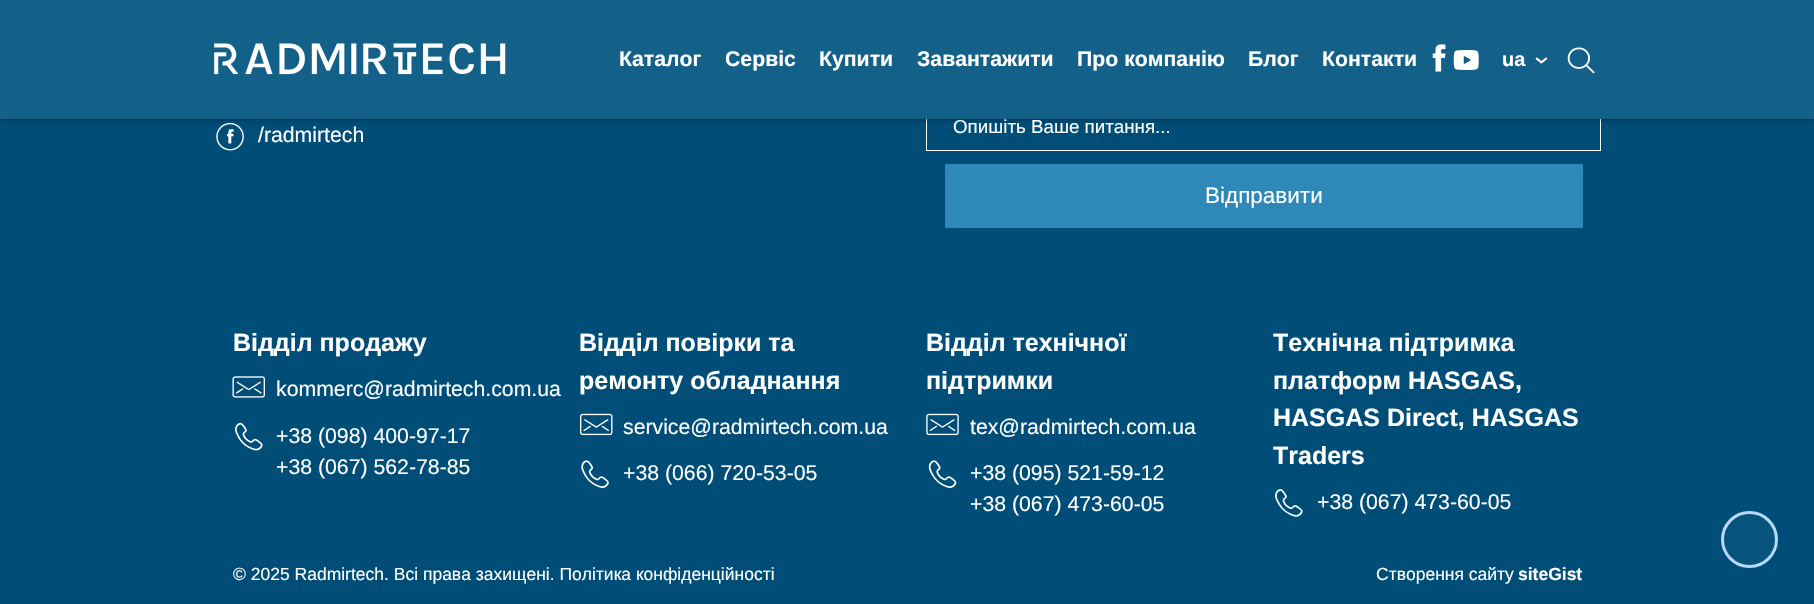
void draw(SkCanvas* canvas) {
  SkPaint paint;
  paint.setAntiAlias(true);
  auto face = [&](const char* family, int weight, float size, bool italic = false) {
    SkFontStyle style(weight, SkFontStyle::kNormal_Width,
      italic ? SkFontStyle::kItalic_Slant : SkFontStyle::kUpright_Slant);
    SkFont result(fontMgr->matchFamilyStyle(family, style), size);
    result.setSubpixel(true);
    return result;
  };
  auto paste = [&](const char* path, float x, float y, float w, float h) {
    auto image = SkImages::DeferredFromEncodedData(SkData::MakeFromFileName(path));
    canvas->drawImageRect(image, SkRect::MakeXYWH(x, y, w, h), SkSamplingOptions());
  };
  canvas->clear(0xff004e77);
  paste("img/6.png", 216, 122, 28, 29);
  paint.setStroke(true);
  paint.setStrokeWidth(1);
  paint.setColor(0xffffffff);
  canvas->drawRect(SkRect::MakeXYWH(926.5f, 101.5f, 674, 49), paint);
  paint.setStroke(false);
  paint.setColor(0x73000000);
  paint.setMaskFilter(SkMaskFilter::MakeBlur(kNormal_SkBlurStyle, 3));
  canvas->drawRect(SkRect::MakeXYWH(0, 0, 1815, 119), paint);
  paint.setMaskFilter(nullptr);
  paint.setColor(0xff136089);
  canvas->drawRect(SkRect::MakeXYWH(0, 0, 1814, 119), paint);
  paste("img/1.png", 214, 43, 292, 32);
  paste("img/2.png", 1432, 44, 14, 28);
  paste("img/3.png", 1453, 50, 26, 20);
  paste("img/4.png", 1535, 57, 13, 7);
  paste("img/5.png", 1567, 47, 28, 27);
  paint.setColor(0xff2e89b8);
  canvas->drawRect(SkRect::MakeXYWH(945, 164, 638, 64), paint);
  paste("img/7.png", 232, 376, 33, 22);
  paste("img/8.png", 235, 422, 28, 29);
  paste("img/9.png", 580, 413, 33, 23);
  paste("img/10.png", 581, 460, 28, 28);
  paste("img/11.png", 926, 413, 33, 23);
  paste("img/12.png", 928, 460, 29, 28);
  paste("img/13.png", 1275, 489, 28, 28);
  paint.setColor(0xff09547c);
  canvas->drawCircle(1749.5f, 539.5f, 27, paint);
  paint.setStroke(true);
  paint.setStrokeWidth(3);
  paint.setColor(0xffb5dafb);
  canvas->drawCircle(1749.5f, 539.5f, 27, paint);
  auto f0 = face("Liberation Sans", 700, 21.25f);
  paint.setStroke(false);
  paint.setColor(0xffffffff);
  {
    const struct { const char* s; float x, y; } items[] = {
      {"Каталог", 619, 66},
      {"Сервіс", 725, 66},
      {"Купити", 819, 66},
      {"Завантажити", 917, 66},
      {"Про компанію", 1077, 66},
      {"Блог", 1248, 66},
      {"Контакти", 1322, 66},
    };
    for (auto [s, x, y] : items) {
      canvas->drawString(s, x, y, f0, paint);
    }
  }
  auto f1 = face("Liberation Sans", 700, 20);
  canvas->drawString("ua", 1502, 66, f1, paint);
  auto f2 = face("Liberation Sans", 400, 21.25f);
  canvas->drawString("/radmirtech", 258, 142, f2, paint);
  auto f3 = face("Liberation Sans", 400, 18.75f);
  canvas->drawString("Опишіть Ваше питання...", 953, 133, f3, paint);
  auto f4 = face("Liberation Sans", 400, 22.5f);
  canvas->drawString("Відправити", 1205, 203, f4, paint);
  auto f5 = face("Liberation Sans", 700, 25);
  canvas->drawString("Відділ продажу", 233, 351, f5, paint);
  {
    const struct { const char* s; float x, y; } items[] = {
      {"kommerc@radmirtech.com.ua", 276, 396},
      {"+38 (098) 400-97-17", 276, 443},
      {"+38 (067) 562-78-85", 276, 474},
    };
    for (auto [s, x, y] : items) {
      canvas->drawString(s, x, y, f2, paint);
    }
  }
  canvas->drawString("Відділ повірки та", 579, 351, f5, paint);
  canvas->drawString("ремонту обладнання", 579, 389, f5, paint);
  canvas->drawString("service@radmirtech.com.ua", 623, 434, f2, paint);
  canvas->drawString("+38 (066) 720-53-05", 623, 480, f2, paint);
  canvas->drawString("Відділ технічної", 926, 351, f5, paint);
  canvas->drawString("підтримки", 926, 389, f5, paint);
  {
    const struct { const char* s; float x, y; } items[] = {
      {"tex@radmirtech.com.ua", 970, 434},
      {"+38 (095) 521-59-12", 970, 480},
      {"+38 (067) 473-60-05", 970, 511},
    };
    for (auto [s, x, y] : items) {
      canvas->drawString(s, x, y, f2, paint);
    }
  }
  {
    const struct { const char* s; float x, y; } items[] = {
      {"Технічна підтримка", 1273, 351},
      {"платформ HASGAS,", 1273, 389},
      {"HASGAS Direct, HASGAS", 1273, 426},
      {"Traders", 1273, 464},
    };
    for (auto [s, x, y] : items) {
      canvas->drawString(s, x, y, f5, paint);
    }
  }
  canvas->drawString("+38 (067) 473-60-05", 1317, 509, f2, paint);
  auto f6 = face("Liberation Sans", 400, 17.5f);
  canvas->drawString("© 2025 Radmirtech. Всі права захищені. Політика конфіденційності", 233, 580, f6, paint);
  canvas->drawString("Створення сайту", 1376, 580, f6, paint);
  auto f7 = face("Liberation Sans", 700, 17.5f);
  canvas->drawString("siteGist", 1518, 580, f7, paint);
}
